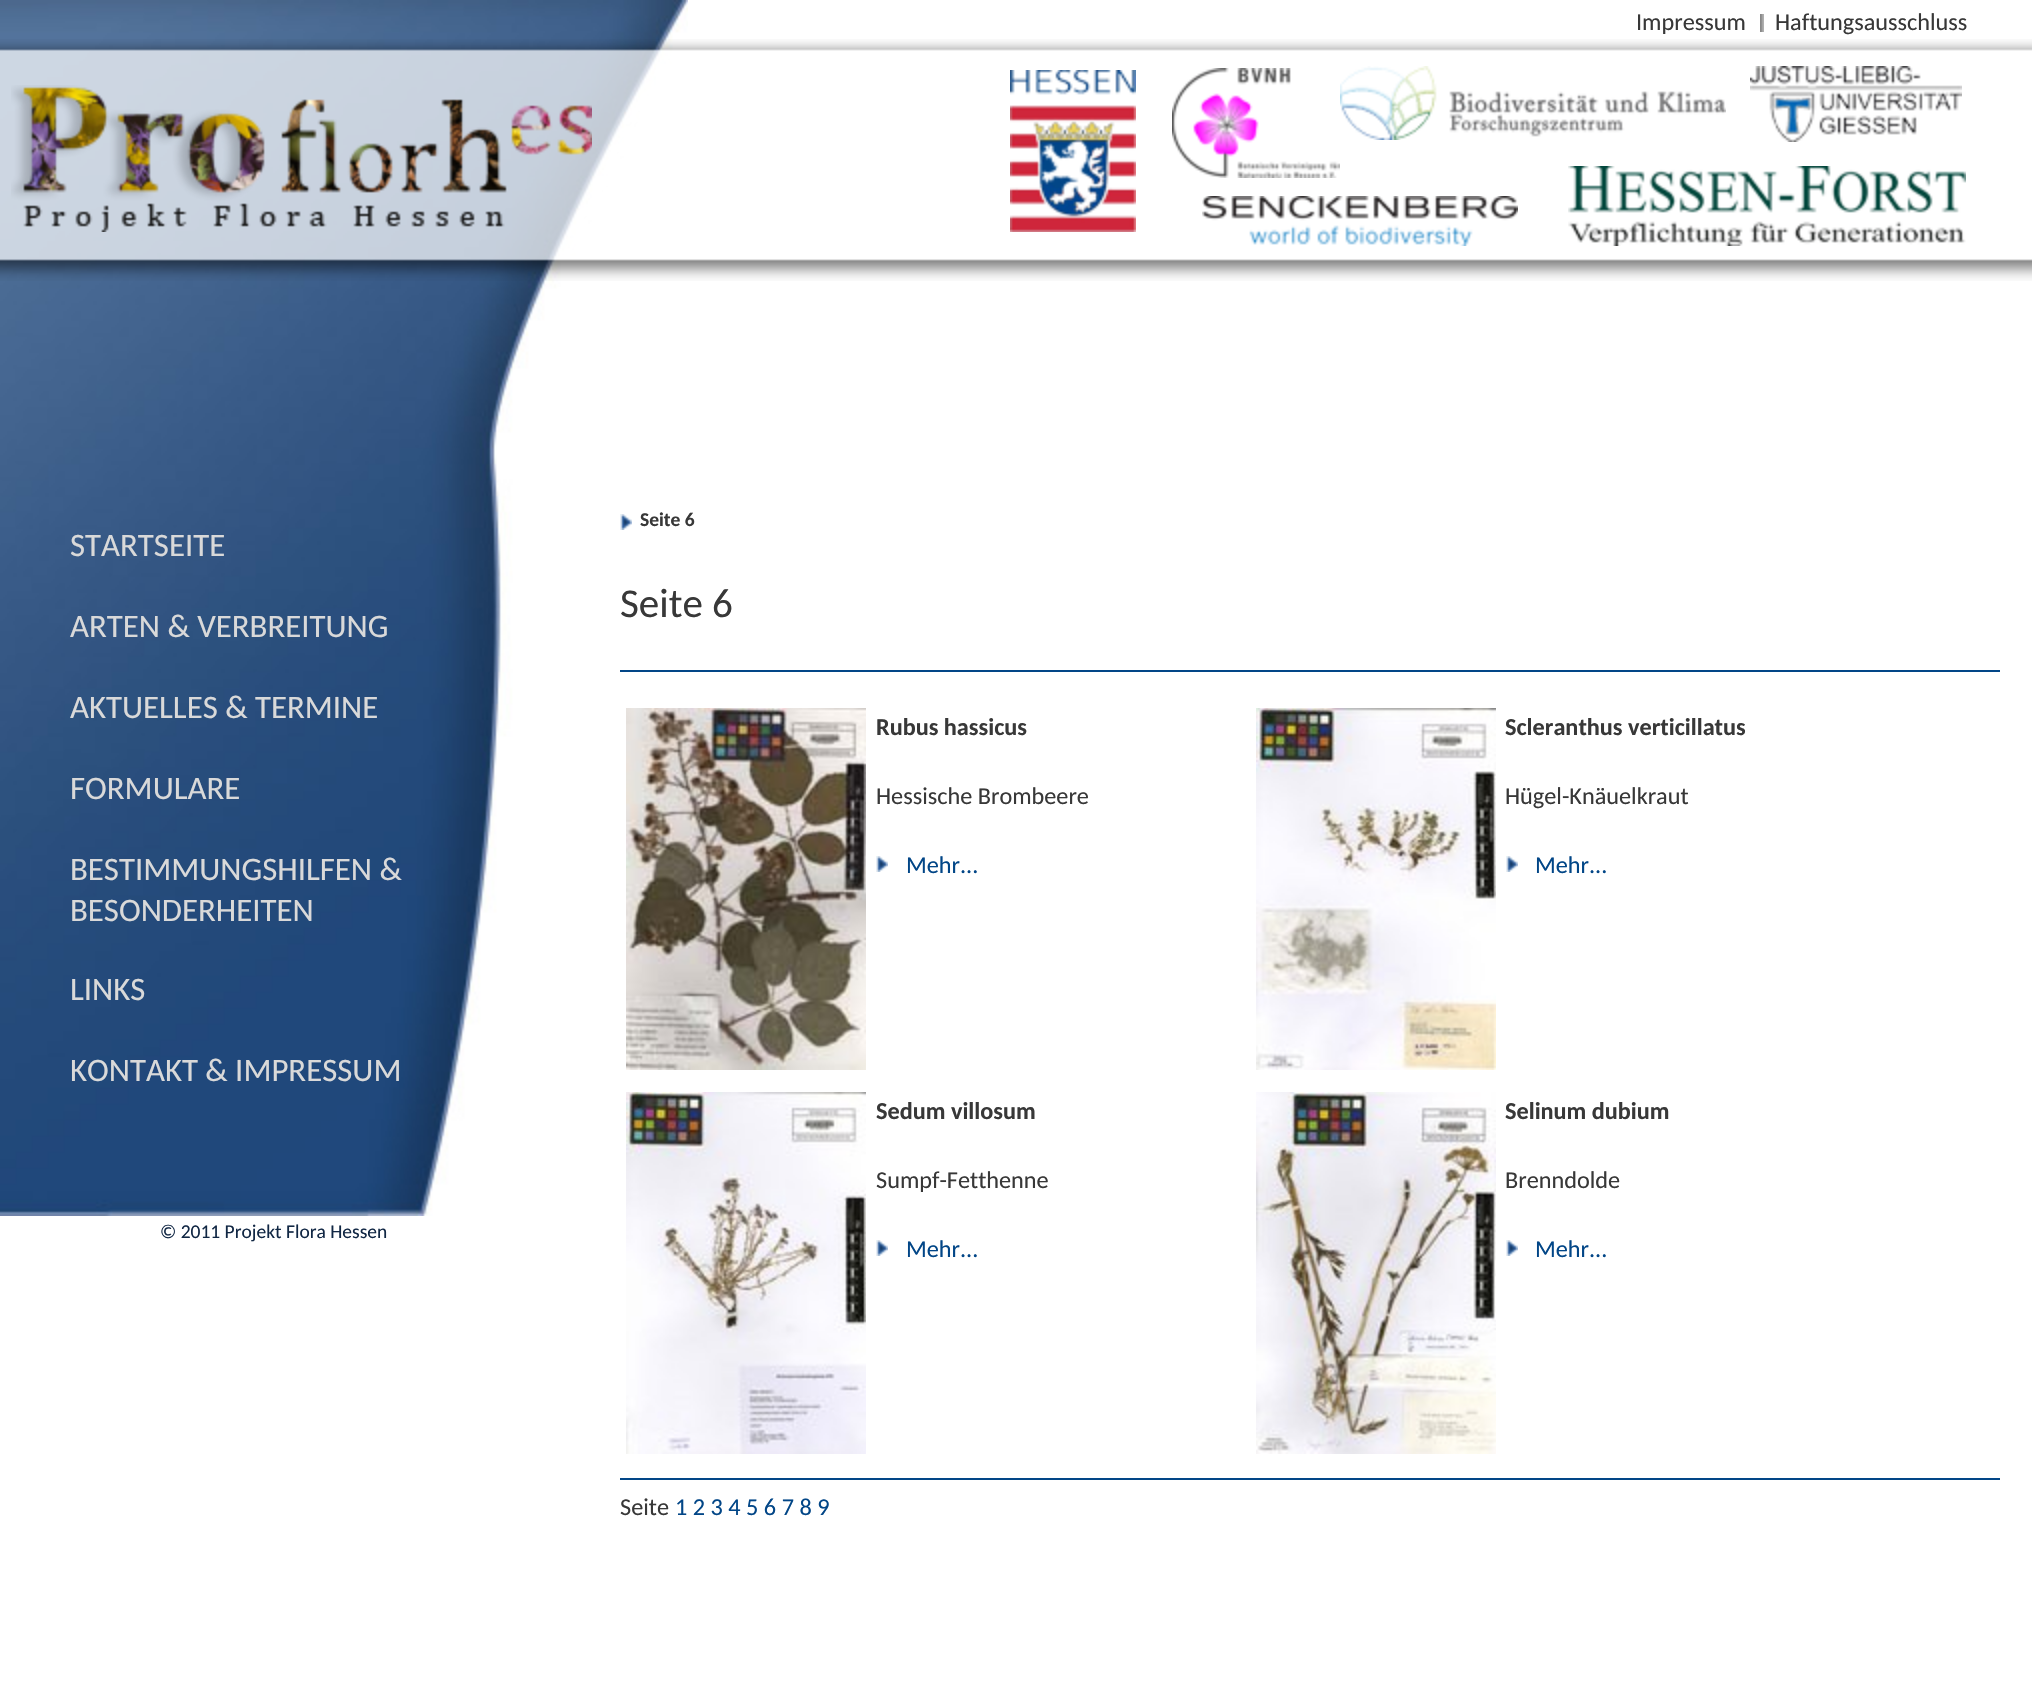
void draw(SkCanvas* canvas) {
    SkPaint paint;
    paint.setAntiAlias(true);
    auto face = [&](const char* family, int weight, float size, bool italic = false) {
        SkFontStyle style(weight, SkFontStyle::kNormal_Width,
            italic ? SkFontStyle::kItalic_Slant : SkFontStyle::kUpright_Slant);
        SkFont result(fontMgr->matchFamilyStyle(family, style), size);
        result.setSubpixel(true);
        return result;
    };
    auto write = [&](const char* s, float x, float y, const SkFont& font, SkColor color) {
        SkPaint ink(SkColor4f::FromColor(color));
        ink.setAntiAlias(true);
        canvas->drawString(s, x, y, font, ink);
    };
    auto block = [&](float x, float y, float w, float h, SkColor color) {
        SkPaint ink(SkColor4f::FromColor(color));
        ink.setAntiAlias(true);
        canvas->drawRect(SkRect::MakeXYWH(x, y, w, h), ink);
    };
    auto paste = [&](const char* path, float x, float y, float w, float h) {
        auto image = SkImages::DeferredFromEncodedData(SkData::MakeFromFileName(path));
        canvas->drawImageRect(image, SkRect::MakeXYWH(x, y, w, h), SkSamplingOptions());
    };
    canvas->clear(SK_ColorWHITE);
    paste("pic1.png", 0, 0, 688, 1216);
    auto kFont1 = face("Carlito", 400, 24.25f);
    write("Impressum", 1636, 30, kFont1, SkColorSetRGB(56, 56, 56));
    paste("pic2.png", 1760, 14, 4, 18);
    write("Haftungsausschluss", 1775, 30, kFont1, SkColorSetRGB(56, 56, 56));
    auto kFont2 = face("Carlito", 400, 32.8f);
    write("STARTSEITE", 70, 556, kFont2, SkColorSetRGB(217, 217, 217));
    write("ARTEN & VERBREITUNG", 70, 637, kFont2, SkColorSetRGB(217, 217, 217));
    write("AKTUELLES & TERMINE", 70, 718, kFont2, SkColorSetRGB(217, 217, 217));
    write("FORMULARE", 70, 799, kFont2, SkColorSetRGB(217, 217, 217));
    write("BESTIMMUNGSHILFEN &", 70, 880, kFont2, SkColorSetRGB(217, 217, 217));
    write("BESONDERHEITEN", 70, 921, kFont2, SkColorSetRGB(217, 217, 217));
    write("LINKS", 70, 1000, kFont2, SkColorSetRGB(217, 217, 217));
    write("KONTAKT & IMPRESSUM", 70, 1081, kFont2, SkColorSetRGB(217, 217, 217));
    paste("pic3.png", 620, 514, 12, 16);
    auto kFont3 = face("Carlito", 700, 19.5f);
    write("Seite 6", 640, 526, kFont3, SkColorSetRGB(56, 56, 56));
    auto kFont4 = face("Carlito", 400, 41);
    write("Seite 6", 620, 617, kFont4, SkColorSetRGB(56, 56, 56));
    block(620, 670, 1380, 2, SkColorSetRGB(2, 70, 135));
    paste("pic4.png", 626, 708, 240, 362);
    auto kFont5 = face("Carlito", 700, 24.25f);
    write("Rubus hassicus", 876, 735, kFont5, SkColorSetRGB(56, 56, 56));
    write("Hessische Brombeere", 876, 804, kFont1, SkColorSetRGB(56, 56, 56));
    paste("pic3.png", 876, 856, 12, 16);
    write("Mehr...", 906, 873, kFont1, SkColorSetRGB(2, 70, 135));
    paste("pic5.png", 1256, 708, 240, 362);
    write("Scleranthus verticillatus", 1505, 735, kFont5, SkColorSetRGB(56, 56, 56));
    write("Hügel-Knäuelkraut", 1505, 804, kFont1, SkColorSetRGB(56, 56, 56));
    paste("pic3.png", 1506, 856, 12, 16);
    write("Mehr...", 1535, 873, kFont1, SkColorSetRGB(2, 70, 135));
    paste("pic6.png", 626, 1092, 240, 362);
    write("Sedum villosum", 876, 1119, kFont5, SkColorSetRGB(56, 56, 56));
    write("Sumpf-Fetthenne", 876, 1188, kFont1, SkColorSetRGB(56, 56, 56));
    paste("pic3.png", 876, 1240, 12, 16);
    write("Mehr...", 906, 1257, kFont1, SkColorSetRGB(2, 70, 135));
    paste("pic7.png", 1256, 1092, 240, 362);
    write("Selinum dubium", 1505, 1119, kFont5, SkColorSetRGB(56, 56, 56));
    write("Brenndolde", 1505, 1188, kFont1, SkColorSetRGB(56, 56, 56));
    paste("pic3.png", 1506, 1240, 12, 16);
    write("Mehr...", 1535, 1257, kFont1, SkColorSetRGB(2, 70, 135));
    block(620, 1478, 1380, 2, SkColorSetRGB(2, 70, 135));
    write("Seite", 620, 1515, kFont1, SkColorSetRGB(56, 56, 56));
    write("1 2 3 4 5 6 7 8 9", 675, 1515, kFont1, SkColorSetRGB(2, 70, 135));
    auto kFont6 = face("Carlito", 400, 19.5f);
    write("© 2011 Projekt Flora Hessen", 160, 1238, kFont6, SkColorSetRGB(17, 39, 68));
    paste("pic8.png", 0, 39, 2032, 242);
    paste("pic9.png", 11, 85, 581, 147);
    paste("pic10.png", 1010, 70, 126, 162);
    paste("pic11.png", 1172, 68, 168, 110);
    paste("pic12.png", 1340, 66, 386, 74);
    paste("pic13.png", 1750, 66, 212, 76);
    paste("pic14.png", 1202, 196, 316, 50);
    paste("pic15.png", 1568, 166, 398, 80);
}
